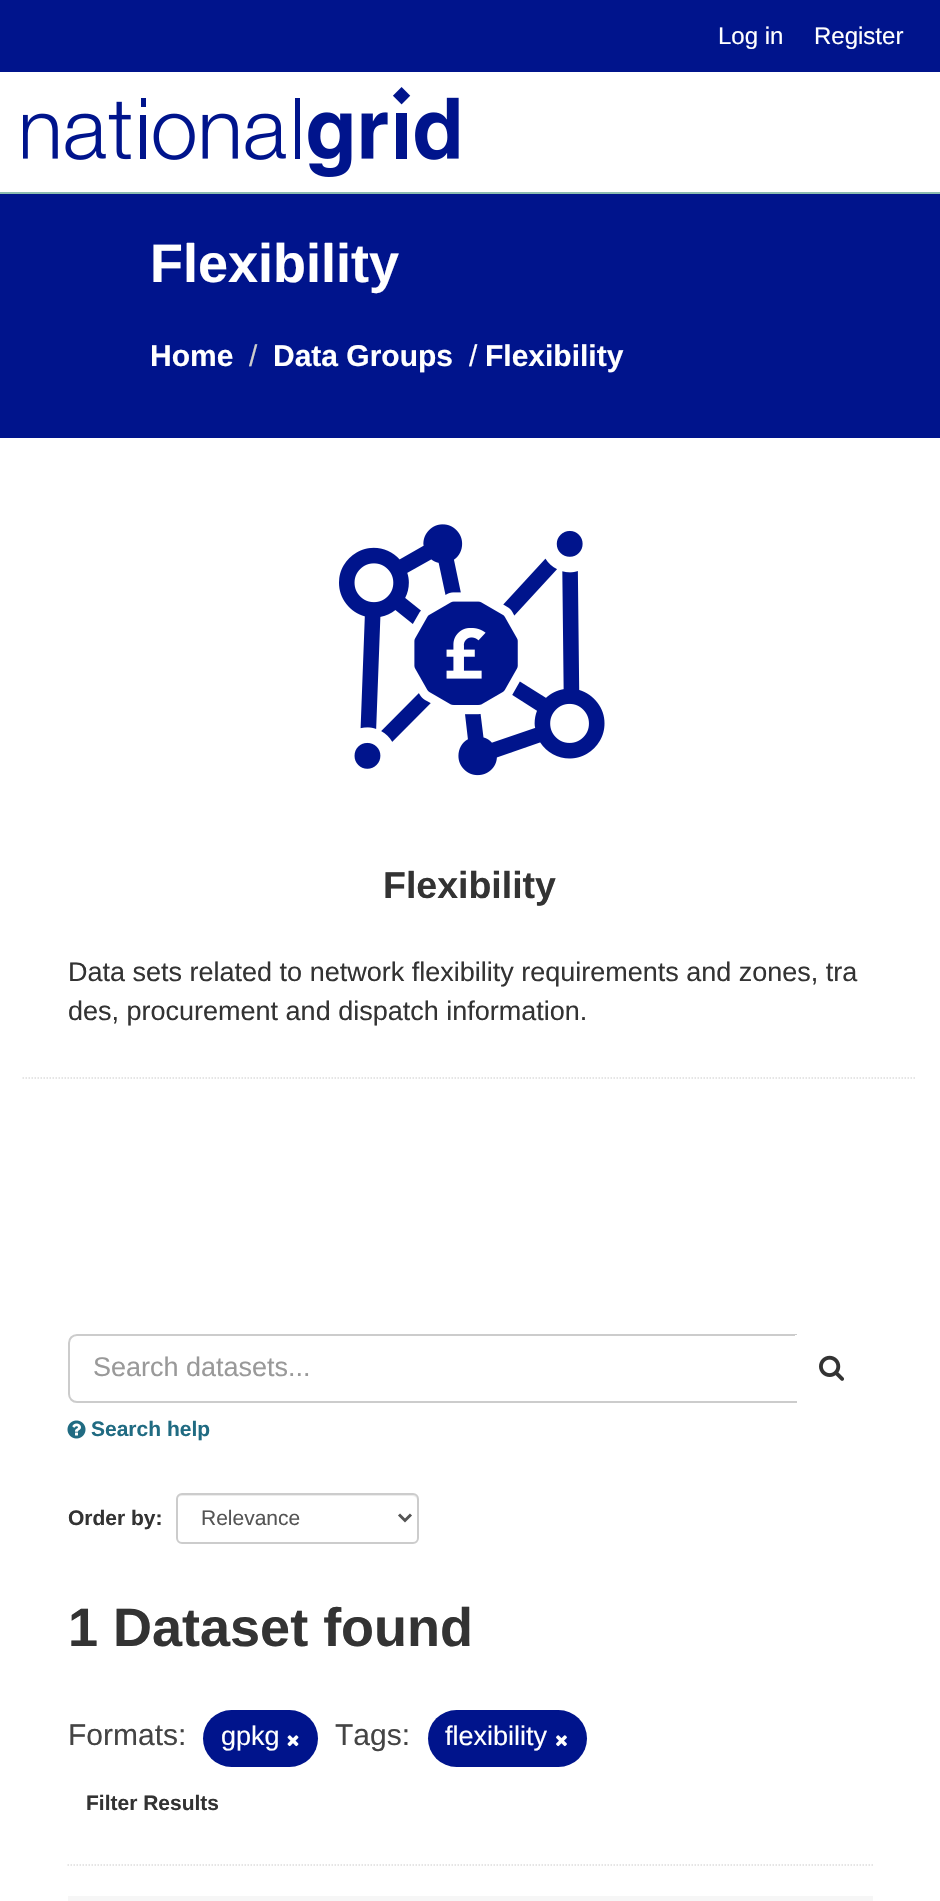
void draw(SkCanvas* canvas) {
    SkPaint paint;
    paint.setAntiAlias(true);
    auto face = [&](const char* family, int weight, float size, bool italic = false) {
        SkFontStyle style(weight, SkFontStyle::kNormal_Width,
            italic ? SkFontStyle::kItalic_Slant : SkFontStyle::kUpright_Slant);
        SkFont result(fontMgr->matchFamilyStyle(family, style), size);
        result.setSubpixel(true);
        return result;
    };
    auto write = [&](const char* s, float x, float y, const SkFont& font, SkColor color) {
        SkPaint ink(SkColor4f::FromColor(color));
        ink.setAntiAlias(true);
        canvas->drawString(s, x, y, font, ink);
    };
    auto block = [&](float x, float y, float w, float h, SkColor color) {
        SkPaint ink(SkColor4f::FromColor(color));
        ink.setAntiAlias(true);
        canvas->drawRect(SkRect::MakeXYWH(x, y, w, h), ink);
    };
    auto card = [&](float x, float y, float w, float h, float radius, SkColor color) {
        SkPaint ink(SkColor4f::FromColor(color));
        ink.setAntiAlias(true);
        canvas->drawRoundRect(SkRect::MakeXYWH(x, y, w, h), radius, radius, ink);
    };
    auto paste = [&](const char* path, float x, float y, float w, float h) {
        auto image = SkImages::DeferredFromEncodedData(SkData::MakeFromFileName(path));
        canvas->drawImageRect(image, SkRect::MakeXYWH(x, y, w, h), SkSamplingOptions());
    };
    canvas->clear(SK_ColorWHITE);
    block(0, 0, 940, 72, SkColorSetRGB(0, 20, 140));
    auto kFont1 = face("Liberation Sans", 400, 24);
    write("Log in", 718, 44, kFont1, SK_ColorWHITE);
    write("Register", 814, 44, kFont1, SK_ColorWHITE);
    block(0, 192, 940, 2, SkColorSetRGB(141, 188, 176));
    paste("pic1.png", 23, 87, 436, 90);
    block(0, 194, 940, 244, SkColorSetRGB(0, 20, 140));
    auto kFont2 = face("Liberation Sans", 700, 54);
    write("Flexibility", 150, 282, kFont2, SK_ColorWHITE);
    auto kFont3 = face("Liberation Sans", 700, 30);
    write("Home", 150, 366, kFont3, SK_ColorWHITE);
    auto kFont4 = face("Liberation Sans", 400, 30);
    write("/", 249, 366, kFont4, SkColorSetRGB(204, 204, 204));
    write("Data Groups", 273, 366, kFont3, SK_ColorWHITE);
    write("/", 469, 366, kFont4, SK_ColorWHITE);
    write("Flexibility", 485, 366, kFont3, SK_ColorWHITE);
    paste("pic2.png", 339, 524, 266, 252);
    auto kFont5 = face("Liberation Sans", 700, 37.5f);
    write("Flexibility", 383, 898, kFont5, SkColorSetRGB(51, 51, 51));
    auto kFont6 = face("Liberation Sans", 400, 27);
    write("Data sets related to network flexibility requirements and zones, tra", 68, 981, kFont6, SkColorSetRGB(51, 51, 51));
    write("des, procurement and dispatch information.", 68, 1020, kFont6, SkColorSetRGB(51, 51, 51));
    paint.setStyle(SkPaint::kStroke_Style);
    paint.setStrokeWidth(1.5f);
    paint.setColor(SkColorSetRGB(221, 221, 221));
    paint.setPathEffect(SkDashPathEffect::Make({{1.5f, 1.5f}}, 0));
    canvas->drawPath(SkPathBuilder().moveTo(22.5f, 1078).lineTo(916.5f, 1078).detach(), paint);
    paint.setPathEffect(nullptr);
    paint.setPathEffect(SkDashPathEffect::Make({{1.5f, 1.5f}}, 0));
    canvas->drawPath(SkPathBuilder().moveTo(67.5f, 1865).lineTo(873, 1865).detach(), paint);
    paint.setPathEffect(nullptr);
    paint.setStrokeWidth(2);
    paint.setColor(SkColorSetRGB(204, 204, 204));
    canvas->drawPath(SkPathBuilder().moveTo(77, 1335).lineTo(796, 1335).lineTo(796, 1402).lineTo(77, 1402).cubicTo(72.5f, 1402, 69, 1398.5f, 69, 1394).lineTo(69, 1343).cubicTo(69, 1338.5f, 72.5f, 1335, 77, 1335).close().detach(), paint);
    write("Search datasets...", 93, 1376, kFont6, SkColorSetRGB(153, 153, 153));
    paint.setStyle(SkPaint::kFill_Style);
    paint.setColor(SK_ColorWHITE);
    canvas->drawPath(SkPathBuilder().moveTo(795, 1335).lineTo(864, 1335).cubicTo(869, 1335, 873, 1339, 873, 1344).lineTo(873, 1392).cubicTo(873, 1397, 869, 1401, 864, 1401).lineTo(795, 1401).close().detach(), paint);
    paste("pic3.png", 819, 1355, 25, 26);
    paste("pic4.png", 67, 1420, 19, 19);
    auto kFont7 = face("Liberation Sans", 700, 21);
    write("Search help", 91, 1436, kFont7, SkColorSetRGB(32, 107, 130));
    write("Order by:", 68, 1525, kFont7, SkColorSetRGB(51, 51, 51));
    paint.setColor(SkColorSetRGB(236, 236, 236));
    canvas->drawPath(SkPathBuilder().moveTo(182, 1496).lineTo(412, 1496).cubicTo(415, 1496, 417, 1498, 417, 1500).lineTo(417, 1499).cubicTo(417, 1496, 415, 1494, 412, 1494).lineTo(182, 1494).cubicTo(179, 1494, 177, 1496, 177, 1499).lineTo(177, 1500).cubicTo(177, 1498, 179, 1496, 182, 1496).close().detach(), paint);
    paint.setStyle(SkPaint::kStroke_Style);
    paint.setColor(SkColorSetRGB(204, 204, 204));
    canvas->drawRoundRect(SkRect::MakeXYWH(177, 1494, 241, 49), 5, 5, paint);
    paint.setStrokeWidth(3);
    paint.setColor(SkColorSetRGB(85, 85, 85));
    canvas->drawPath(SkPathBuilder().moveTo(399, 1514.5f).lineTo(405, 1520.5f).lineTo(411, 1514.5f).detach(), paint);
    auto kFont8 = face("Liberation Sans", 400, 21);
    write("Relevance", 201, 1525, kFont8, SkColorSetRGB(85, 85, 85));
    write("1 Dataset found", 68, 1646, kFont2, SkColorSetRGB(51, 51, 51));
    write("Formats:", 68, 1745, kFont4, SkColorSetRGB(68, 68, 68));
    card(203, 1710, 115, 57, 28.5f, SkColorSetRGB(0, 20, 140));
    write("gpkg", 221, 1745, kFont6, SK_ColorWHITE);
    paste("pic5.png", 287, 1735, 12, 12);
    write("Tags:", 335, 1745, kFont4, SkColorSetRGB(68, 68, 68));
    card(428, 1710, 159, 57, 28.5f, SkColorSetRGB(0, 20, 140));
    write("flexibility", 445, 1745, kFont6, SK_ColorWHITE);
    paste("pic6.png", 556, 1735, 11, 12);
    write("Filter Results", 86, 1810, kFont7, SkColorSetRGB(51, 51, 51));
    block(68, 1896, 805, 5, SkColorSetRGB(246, 246, 246));
}
